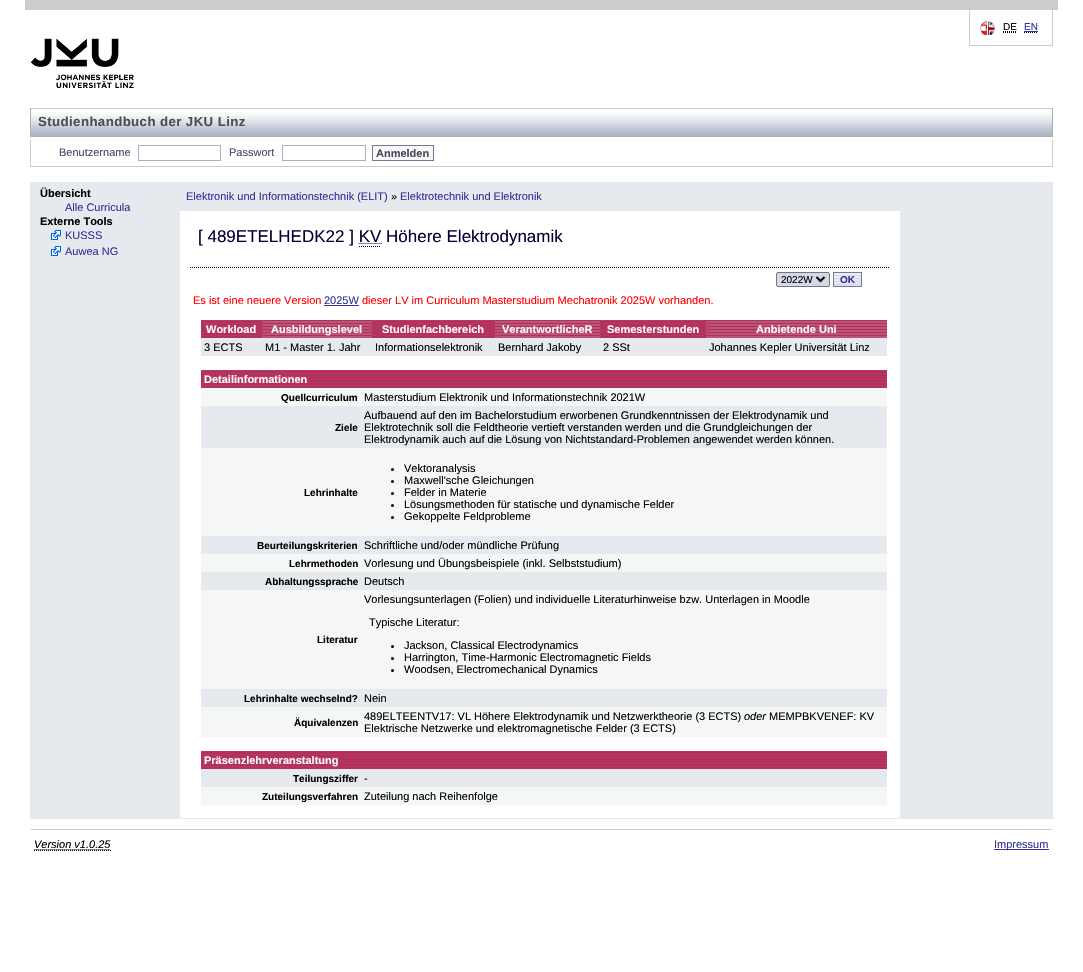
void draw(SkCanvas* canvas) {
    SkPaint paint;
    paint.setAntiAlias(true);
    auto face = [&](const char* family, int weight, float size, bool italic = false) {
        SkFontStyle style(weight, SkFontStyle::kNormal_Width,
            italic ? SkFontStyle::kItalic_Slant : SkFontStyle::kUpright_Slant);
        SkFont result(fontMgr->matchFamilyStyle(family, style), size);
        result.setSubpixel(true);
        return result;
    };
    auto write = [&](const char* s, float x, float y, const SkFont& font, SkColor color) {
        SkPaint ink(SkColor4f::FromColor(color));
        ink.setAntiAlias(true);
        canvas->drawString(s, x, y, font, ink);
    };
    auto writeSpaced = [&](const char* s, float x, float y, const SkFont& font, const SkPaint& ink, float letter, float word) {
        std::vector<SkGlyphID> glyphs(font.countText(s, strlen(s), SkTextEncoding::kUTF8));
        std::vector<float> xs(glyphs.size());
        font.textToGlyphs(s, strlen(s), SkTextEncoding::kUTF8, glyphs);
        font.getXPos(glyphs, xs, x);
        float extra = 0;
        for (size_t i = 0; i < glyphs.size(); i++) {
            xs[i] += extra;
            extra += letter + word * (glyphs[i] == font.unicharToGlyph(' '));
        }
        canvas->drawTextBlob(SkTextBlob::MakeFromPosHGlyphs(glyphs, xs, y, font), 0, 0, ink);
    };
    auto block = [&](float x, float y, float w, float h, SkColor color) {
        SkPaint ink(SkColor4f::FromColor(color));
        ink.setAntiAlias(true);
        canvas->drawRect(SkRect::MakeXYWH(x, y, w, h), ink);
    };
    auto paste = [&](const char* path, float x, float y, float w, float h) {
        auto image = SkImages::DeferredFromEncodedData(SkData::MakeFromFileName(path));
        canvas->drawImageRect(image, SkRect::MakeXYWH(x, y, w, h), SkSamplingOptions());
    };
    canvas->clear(SK_ColorWHITE);
    block(25, 0, 1033, 10, SkColorSetRGB(204, 204, 204));
    block(1052, 10, 1, 36, SkColorSetRGB(204, 204, 204));
    block(969, 45, 84, 1, SkColorSetRGB(204, 204, 204));
    block(969, 10, 1, 36, SkColorSetRGB(204, 204, 204));
    paste("pic1.png", 980, 21, 15, 14);
    auto kFont1 = face("Liberation Sans", 400, 10);
    write("DE", 1003, 30, kFont1, SK_ColorBLACK);
    paint.setStyle(SkPaint::kStroke_Style);
    paint.setStrokeWidth(1);
    paint.setColor(SK_ColorBLACK);
    paint.setPathEffect(SkDashPathEffect::Make({{1, 1}}, 0));
    canvas->drawPath(SkPathBuilder().moveTo(1003, 32.5f).lineTo(1016, 32.5f).moveTo(1003, 31.5f).lineTo(1016.5f, 31.5f).detach(), paint);
    paint.setPathEffect(nullptr);
    write("EN", 1024, 30, kFont1, SkColorSetRGB(51, 50, 152));
    paint.setPathEffect(SkDashPathEffect::Make({{1, 1}}, 0));
    canvas->drawPath(SkPathBuilder().moveTo(1024, 32.5f).lineTo(1038, 32.5f).detach(), paint);
    paint.setPathEffect(nullptr);
    block(1024, 31, 14, 1, SkColorSetRGB(51, 50, 152));
    paste("pic2.png", 30, 38, 104, 51);
    paste("pic3.png", 31, 108, 1021, 28);
    block(1052, 108, 1, 29, SkColorSetRGB(174, 174, 174));
    block(30, 136, 1023, 1, SkColorSetRGB(174, 174, 174));
    block(30, 108, 1, 29, SkColorSetRGB(174, 174, 174));
    auto kFont2 = face("Liberation Sans", 700, 13.25f);
    paint.setStyle(SkPaint::kFill_Style);
    paint.setColor(SkColorSetRGB(78, 78, 78));
    writeSpaced("Studienhandbuch der JKU Linz", 38, 126, kFont2, paint, 0.4f, 0);
    block(1052, 140, 1, 27, SkColorSetRGB(204, 204, 204));
    block(30, 166, 1023, 1, SkColorSetRGB(204, 204, 204));
    block(30, 140, 1, 27, SkColorSetRGB(204, 204, 204));
    auto kFont3 = face("Liberation Sans", 400, 11);
    write("Benutzername", 59, 156, kFont3, SkColorSetRGB(71, 71, 102));
    paint.setStyle(SkPaint::kStroke_Style);
    paint.setColor(SkColorSetRGB(176, 174, 195));
    canvas->drawRect(SkRect::MakeXYWH(138.5f, 145.5f, 82, 15), paint);
    write("Passwort", 229, 156, kFont3, SkColorSetRGB(71, 71, 102));
    canvas->drawRect(SkRect::MakeXYWH(282.5f, 145.5f, 83, 15), paint);
    paint.setStyle(SkPaint::kFill_Style);
    paint.setColor(SkColorSetRGB(247, 247, 247));
    canvas->drawRect(SkRect::MakeXYWH(372.5f, 145.5f, 61, 15), paint);
    paint.setStyle(SkPaint::kStroke_Style);
    paint.setColor(SkColorSetRGB(116, 120, 149));
    canvas->drawRect(SkRect::MakeXYWH(372.5f, 145.5f, 61, 15), paint);
    auto kFont4 = face("Liberation Sans", 700, 11);
    write("Anmelden", 376, 157, kFont4, SkColorSetRGB(71, 71, 102));
    block(30, 182, 150, 636, SkColorSetRGB(230, 233, 238));
    write("Übersicht", 40, 197, kFont4, SK_ColorBLACK);
    write("Alle Curricula", 65, 211, kFont3, SkColorSetRGB(51, 50, 152));
    write("Externe Tools", 40, 225, kFont4, SK_ColorBLACK);
    paste("pic4.png", 51, 230, 10, 10);
    write("KUSSS", 65, 239, kFont3, SkColorSetRGB(51, 50, 152));
    paste("pic4.png", 51, 246, 10, 10);
    write("Auwea NG", 65, 255, kFont3, SkColorSetRGB(51, 50, 152));
    block(180, 182, 873, 29, SkColorSetRGB(230, 233, 238));
    write("Elektronik und Informationstechnik (ELIT)", 186, 200, kFont3, SkColorSetRGB(51, 50, 152));
    write("»", 391, 200, kFont3, SK_ColorBLACK);
    write("Elektrotechnik und Elektronik", 400, 200, kFont3, SkColorSetRGB(51, 50, 152));
    block(900, 210, 1, 608, SkColorSetRGB(230, 233, 238));
    paint.setColor(SK_ColorBLACK);
    paint.setPathEffect(SkDashPathEffect::Make({{1, 1}}, 0));
    canvas->drawPath(SkPathBuilder().moveTo(190, 267.5f).lineTo(890, 267.5f).detach(), paint);
    paint.setPathEffect(nullptr);
    auto kFont5 = face("Liberation Sans", 400, 17);
    write("[ 489ETELHEDK22 ] KV Höhere Elektrodynamik", 198, 242, kFont5, SkColorSetRGB(0, 0, 51));
    paint.setColor(SkColorSetRGB(0, 0, 51));
    paint.setPathEffect(SkDashPathEffect::Make({{1, 1}}, 0));
    canvas->drawPath(SkPathBuilder().moveTo(358.5f, 243.5f).lineTo(381.5f, 243.5f).detach(), paint);
    paint.setPathEffect(nullptr);
    paint.setColor(SK_ColorBLACK);
    paint.setPathEffect(SkDashPathEffect::Make({{1, 1}}, 0));
    canvas->drawPath(SkPathBuilder().moveTo(359, 246.5f).lineTo(381, 246.5f).detach(), paint);
    paint.setPathEffect(nullptr);
    paint.setStyle(SkPaint::kFill_Style);
    paint.setColor(SkColorSetRGB(214, 215, 233));
    canvas->drawRoundRect(SkRect::MakeXYWH(776.5f, 272.5f, 53, 14), 1.5f, 1.5f, paint);
    paint.setStyle(SkPaint::kStroke_Style);
    paint.setColor(SkColorSetRGB(118, 118, 118));
    canvas->drawRoundRect(SkRect::MakeXYWH(776.5f, 272.5f, 53, 14), 1.5f, 1.5f, paint);
    paint.setStrokeWidth(2);
    paint.setColor(SK_ColorBLACK);
    canvas->drawPath(SkPathBuilder().moveTo(816.5f, 277).lineTo(820.5f, 281).lineTo(824.5f, 277).detach(), paint);
    write("2022W", 781, 283, kFont1, SK_ColorBLACK);
    paste("pic5.png", 834, 273, 27, 13);
    paint.setStrokeWidth(1);
    paint.setColor(SkColorSetRGB(116, 120, 149));
    canvas->drawRect(SkRect::MakeXYWH(833.5f, 272.5f, 28, 14), paint);
    auto kFont6 = face("Liberation Sans", 700, 10);
    write("OK", 840, 283, kFont6, SkColorSetRGB(51, 50, 152));
    write("Es ist eine neuere Version", 193, 304, kFont3, SkColorSetRGB(255, 0, 0));
    write("2025W", 324, 304, kFont3, SkColorSetRGB(51, 50, 152));
    block(324, 305, 35, 1, SkColorSetRGB(51, 50, 152));
    write("dieser LV im Curriculum Masterstudium Mechatronik 2025W vorhanden.", 362, 304, kFont3, SkColorSetRGB(255, 0, 0));
    paste("pic6.png", 201, 320, 61, 18);
    write("Workload", 206, 333, kFont4, SkColorSetRGB(247, 247, 247));
    paste("pic7.png", 262, 320, 110, 18);
    write("Ausbildungslevel", 271, 333, kFont4, SkColorSetRGB(247, 247, 247));
    paste("pic8.png", 372, 320, 123, 18);
    write("Studienfachbereich", 382, 333, kFont4, SkColorSetRGB(247, 247, 247));
    paste("pic9.png", 495, 320, 105, 18);
    write("VerantwortlicheR", 502, 333, kFont4, SkColorSetRGB(247, 247, 247));
    paste("pic10.png", 600, 320, 106, 18);
    write("Semesterstunden", 607, 333, kFont4, SkColorSetRGB(247, 247, 247));
    paste("pic11.png", 706, 320, 181, 18);
    write("Anbietende Uni", 756, 333, kFont4, SkColorSetRGB(247, 247, 247));
    block(201, 338, 686, 18, SkColorSetRGB(230, 233, 237));
    write("3 ECTS", 204, 351, kFont3, SK_ColorBLACK);
    write("M1 - Master 1. Jahr", 265, 351, kFont3, SK_ColorBLACK);
    write("Informationselektronik", 375, 351, kFont3, SK_ColorBLACK);
    write("Bernhard Jakoby", 498, 351, kFont3, SK_ColorBLACK);
    write("2 SSt", 603, 351, kFont3, SK_ColorBLACK);
    write("Johannes Kepler Universität Linz", 709, 351, kFont3, SK_ColorBLACK);
    paste("pic12.png", 201, 370, 686, 18);
    write("Detailinformationen", 204, 383, kFont4, SkColorSetRGB(247, 247, 247));
    block(201, 388, 686, 18, SkColorSetRGB(245, 247, 247));
    write("Quellcurriculum", 281, 401, kFont6, SK_ColorBLACK);
    write("Masterstudium Elektronik und Informationstechnik 2021W", 364, 401, kFont3, SK_ColorBLACK);
    block(201, 406, 686, 42, SkColorSetRGB(230, 233, 237));
    write("Ziele", 335, 431, kFont6, SK_ColorBLACK);
    write("Aufbauend auf den im Bachelorstudium erworbenen Grundkenntnissen der Elektrodynamik und", 364, 419, kFont3, SK_ColorBLACK);
    write("Elektrotechnik soll die Feldtheorie vertieft verstanden werden und die Grundgleichungen der", 364, 431, kFont3, SK_ColorBLACK);
    write("Elektrodynamik auch auf die Lösung von Nichtstandard-Problemen angewendet werden können.", 364, 443, kFont3, SK_ColorBLACK);
    block(201, 448, 686, 88, SkColorSetRGB(245, 247, 247));
    write("Lehrinhalte", 304, 496, kFont6, SK_ColorBLACK);
    paint.setStyle(SkPaint::kFill_Style);
    paint.setColor(SK_ColorBLACK);
    canvas->drawCircle(392.5f, 469.5f, 1.5f, paint);
    write("Vektoranalysis", 404, 472, kFont3, SK_ColorBLACK);
    canvas->drawCircle(392.5f, 481.5f, 1.5f, paint);
    write("Maxwell'sche Gleichungen", 404, 484, kFont3, SK_ColorBLACK);
    canvas->drawCircle(392.5f, 493.5f, 1.5f, paint);
    write("Felder in Materie", 404, 496, kFont3, SK_ColorBLACK);
    canvas->drawCircle(392.5f, 505.5f, 1.5f, paint);
    write("Lösungsmethoden für statische und dynamische Felder", 404, 508, kFont3, SK_ColorBLACK);
    canvas->drawCircle(392.5f, 517.5f, 1.5f, paint);
    write("Gekoppelte Feldprobleme", 404, 520, kFont3, SK_ColorBLACK);
    block(201, 536, 686, 18, SkColorSetRGB(230, 233, 237));
    write("Beurteilungskriterien", 257, 549, kFont6, SK_ColorBLACK);
    write("Schriftliche und/oder mündliche Prüfung", 364, 549, kFont3, SK_ColorBLACK);
    block(201, 554, 686, 18, SkColorSetRGB(245, 247, 247));
    write("Lehrmethoden", 289, 567, kFont6, SK_ColorBLACK);
    write("Vorlesung und Übungsbeispiele (inkl. Selbststudium)", 364, 567, kFont3, SK_ColorBLACK);
    block(201, 572, 686, 18, SkColorSetRGB(230, 233, 237));
    write("Abhaltungssprache", 265, 585, kFont6, SK_ColorBLACK);
    write("Deutsch", 364, 585, kFont3, SK_ColorBLACK);
    block(201, 590, 686, 99, SkColorSetRGB(245, 247, 247));
    write("Literatur", 317, 643, kFont6, SK_ColorBLACK);
    write("Vorlesungsunterlagen (Folien) und individuelle Literaturhinweise bzw. Unterlagen in Moodle", 364, 603, kFont3, SK_ColorBLACK);
    write("Typische Literatur:", 369, 626, kFont3, SK_ColorBLACK);
    canvas->drawCircle(392.5f, 646.5f, 1.5f, paint);
    write("Jackson, Classical Electrodynamics", 404, 649, kFont3, SK_ColorBLACK);
    canvas->drawCircle(392.5f, 658.5f, 1.5f, paint);
    write("Harrington, Time-Harmonic Electromagnetic Fields", 404, 661, kFont3, SK_ColorBLACK);
    canvas->drawCircle(392.5f, 670.5f, 1.5f, paint);
    write("Woodsen, Electromechanical Dynamics", 404, 673, kFont3, SK_ColorBLACK);
    block(201, 689, 686, 18, SkColorSetRGB(230, 233, 237));
    write("Lehrinhalte wechselnd?", 244, 702, kFont6, SK_ColorBLACK);
    write("Nein", 364, 702, kFont3, SK_ColorBLACK);
    block(201, 707, 686, 30, SkColorSetRGB(245, 247, 247));
    write("Äquivalenzen", 294, 726, kFont6, SK_ColorBLACK);
    write("489ELTEENTV17: VL Höhere Elektrodynamik und Netzwerktheorie (3 ECTS)", 364, 720, kFont3, SK_ColorBLACK);
    auto kFont7 = face("Liberation Sans", 400, 11, true);
    write("oder", 744, 720, kFont7, SK_ColorBLACK);
    write("MEMPBKVENEF: KV", 769, 720, kFont3, SK_ColorBLACK);
    write("Elektrische Netzwerke und elektromagnetische Felder (3 ECTS)", 364, 732, kFont3, SK_ColorBLACK);
    paste("pic12.png", 201, 751, 686, 18);
    write("Präsenzlehrveranstaltung", 204, 764, kFont4, SkColorSetRGB(247, 247, 247));
    block(201, 769, 686, 18, SkColorSetRGB(230, 233, 237));
    write("Teilungsziffer", 293, 782, kFont6, SK_ColorBLACK);
    write("-", 364, 782, kFont3, SK_ColorBLACK);
    block(201, 787, 686, 18, SkColorSetRGB(245, 247, 247));
    write("Zuteilungsverfahren", 262, 800, kFont6, SK_ColorBLACK);
    write("Zuteilung nach Reihenfolge", 364, 800, kFont3, SK_ColorBLACK);
    block(901, 211, 152, 607, SkColorSetRGB(230, 233, 238));
    block(30, 818, 1024, 1, SkColorSetRGB(230, 233, 238));
    block(31, 829, 1021, 1, SkColorSetRGB(204, 204, 204));
    write("Version v1.0.25", 34, 848, kFont7, SK_ColorBLACK);
    paint.setStyle(SkPaint::kStroke_Style);
    paint.setPathEffect(SkDashPathEffect::Make({{1, 1}}, 0));
    canvas->drawPath(SkPathBuilder().moveTo(34, 850.5f).lineTo(111, 850.5f).detach(), paint);
    paint.setPathEffect(nullptr);
    paint.setPathEffect(SkDashPathEffect::Make({{1, 1}}, 0));
    canvas->drawPath(SkPathBuilder().moveTo(34.5f, 849.5f).lineTo(110.5f, 849.5f).detach(), paint);
    paint.setPathEffect(nullptr);
    block(994, 849, 55, 1, SkColorSetRGB(51, 50, 152));
    write("Impressum", 994, 848, kFont3, SkColorSetRGB(51, 50, 152));
}
